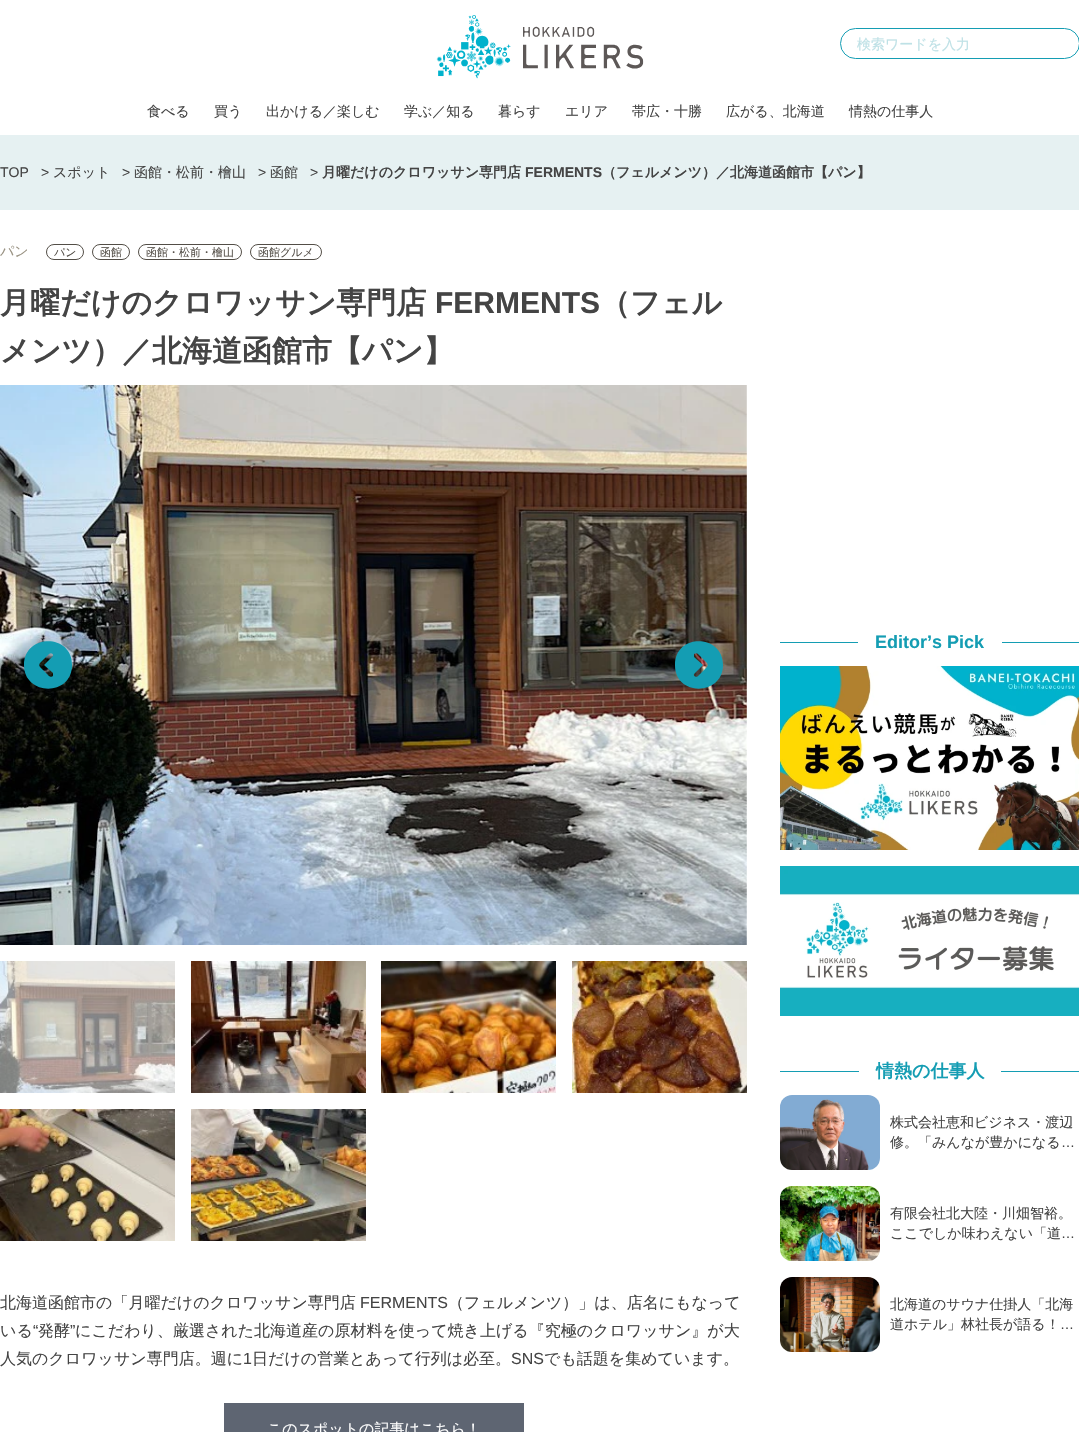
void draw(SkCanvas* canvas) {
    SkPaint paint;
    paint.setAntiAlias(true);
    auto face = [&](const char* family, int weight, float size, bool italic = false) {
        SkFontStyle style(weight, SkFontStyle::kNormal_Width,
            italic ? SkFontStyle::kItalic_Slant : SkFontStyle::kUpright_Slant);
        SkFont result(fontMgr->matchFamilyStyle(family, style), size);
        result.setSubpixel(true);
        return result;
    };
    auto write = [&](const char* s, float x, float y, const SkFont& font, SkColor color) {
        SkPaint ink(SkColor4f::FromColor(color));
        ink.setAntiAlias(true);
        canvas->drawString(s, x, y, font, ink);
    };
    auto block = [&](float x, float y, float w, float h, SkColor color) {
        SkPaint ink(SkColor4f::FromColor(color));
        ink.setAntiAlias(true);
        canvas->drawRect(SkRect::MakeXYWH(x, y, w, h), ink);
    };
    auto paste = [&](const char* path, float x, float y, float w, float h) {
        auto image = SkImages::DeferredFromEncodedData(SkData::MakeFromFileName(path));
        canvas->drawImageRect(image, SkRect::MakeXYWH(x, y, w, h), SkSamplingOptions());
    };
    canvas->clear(SK_ColorWHITE);
    paste("pic1.png", 436, 15, 208, 64);
    paint.setStyle(SkPaint::kStroke_Style);
    paint.setStrokeWidth(1);
    paint.setColor(SkColorSetRGB(20, 157, 179));
    canvas->drawRoundRect(SkRect::MakeXYWH(840.5f, 28.5f, 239, 30), 15, 15, paint);
    auto kFont1 = face("WenQuanYi Zen Hei", 500, 14);
    write("検索ワードを入力", 857, 49, kFont1, SkColorSetRGB(190, 225, 230));
    write("食べる", 147, 116, kFont1, SkColorSetRGB(68, 68, 68));
    write("買う", 214, 116, kFont1, SkColorSetRGB(68, 68, 68));
    write("出かける／楽しむ", 266, 116, kFont1, SkColorSetRGB(68, 68, 68));
    write("学ぶ／知る", 404, 116, kFont1, SkColorSetRGB(68, 68, 68));
    write("暮らす", 498, 116, kFont1, SkColorSetRGB(68, 68, 68));
    write("エリア", 565, 116, kFont1, SkColorSetRGB(68, 68, 68));
    write("帯広・十勝", 632, 116, kFont1, SkColorSetRGB(68, 68, 68));
    write("広がる、北海道", 726, 116, kFont1, SkColorSetRGB(68, 68, 68));
    write("情熱の仕事人", 849, 116, kFont1, SkColorSetRGB(68, 68, 68));
    block(0, 135, 1079, 75, SkColorSetRGB(230, 241, 242));
    auto kFont2 = face("Liberation Sans", 400, 14);
    write("TOP", 0, 177, kFont2, SkColorSetRGB(68, 68, 68));
    write(">", 41, 177, kFont2, SkColorSetRGB(68, 68, 68));
    write("スポット", 53, 177, kFont1, SkColorSetRGB(68, 68, 68));
    write(">", 122, 177, kFont2, SkColorSetRGB(68, 68, 68));
    write("函館・松前・檜山", 134, 177, kFont1, SkColorSetRGB(68, 68, 68));
    write(">", 258, 177, kFont2, SkColorSetRGB(68, 68, 68));
    write("函館", 270, 177, kFont1, SkColorSetRGB(68, 68, 68));
    write(">", 310, 177, kFont2, SkColorSetRGB(68, 68, 68));
    auto kFont3 = face("WenQuanYi Zen Hei", 700, 14);
    write("月曜だけのクロワッサン専門店", 322, 177, kFont3, SkColorSetRGB(68, 68, 68));
    auto kFont4 = face("Liberation Sans", 700, 14);
    write("FERMENTS", 525, 177, kFont4, SkColorSetRGB(68, 68, 68));
    write("（フェルメンツ）／北海道函館市【パン】", 602, 177, kFont3, SkColorSetRGB(68, 68, 68));
    write("パン", 0, 256, kFont1, SkColorSetRGB(153, 146, 130));
    paint.setColor(SkColorSetRGB(83, 78, 71));
    canvas->drawRoundRect(SkRect::MakeXYWH(46.5f, 244.5f, 37, 15), 7.5f, 7.5f, paint);
    auto kFont5 = face("WenQuanYi Zen Hei", 500, 11);
    write("パン", 54, 256, kFont5, SkColorSetRGB(83, 78, 71));
    canvas->drawRoundRect(SkRect::MakeXYWH(92.5f, 244.5f, 37, 15), 7.5f, 7.5f, paint);
    write("函館", 100, 256, kFont5, SkColorSetRGB(83, 78, 71));
    canvas->drawRoundRect(SkRect::MakeXYWH(138.5f, 244.5f, 103, 15), 7.5f, 7.5f, paint);
    write("函館・松前・檜山", 146, 256, kFont5, SkColorSetRGB(83, 78, 71));
    canvas->drawRoundRect(SkRect::MakeXYWH(250.5f, 244.5f, 71, 15), 7.5f, 7.5f, paint);
    write("函館グルメ", 258, 256, kFont5, SkColorSetRGB(83, 78, 71));
    auto kFont6 = face("WenQuanYi Zen Hei", 700, 30);
    write("月曜だけのクロワッサン専門店", 0, 313, kFont6, SkColorSetRGB(68, 68, 68));
    auto kFont7 = face("Liberation Sans", 700, 30);
    write("FERMENTS", 435, 313, kFont7, SkColorSetRGB(68, 68, 68));
    write("（フェル", 600, 313, kFont6, SkColorSetRGB(68, 68, 68));
    write("メンツ）／北海道函館市【パン】", 0, 361, kFont6, SkColorSetRGB(68, 68, 68));
    paste("pic2.png", 0, 385, 747, 560);
    paint.setStyle(SkPaint::kFill_Style);
    paint.setColor(SkColorSetRGB(20, 157, 179));
    canvas->drawPath(SkPathBuilder().moveTo(72, 665).cubicTo(72, 633, 24, 634, 24, 665).cubicTo(24, 696, 72, 697, 72, 665).close().moveTo(49, 654).cubicTo(51, 652, 54, 654, 53, 656).lineTo(44, 665).lineTo(53, 673).cubicTo(53, 674, 53, 675, 53, 676).cubicTo(52, 677, 50, 677, 49, 676).lineTo(40, 667).cubicTo(39, 666, 39, 664, 40, 663).close().detach(), paint);
    canvas->drawPath(SkPathBuilder().moveTo(675, 665).cubicTo(675, 697, 723, 696, 723, 665).cubicTo(723, 634, 675, 633, 675, 665).close().moveTo(698, 676).cubicTo(696, 678, 693, 676, 694, 674).lineTo(703, 665).lineTo(694, 657).cubicTo(694, 656, 694, 655, 694, 654).cubicTo(695, 653, 697, 653, 698, 654).lineTo(707, 663).cubicTo(708, 664, 708, 666, 707, 667).close().detach(), paint);
    paste("pic3.png", 0, 961, 175, 132);
    paste("pic4.png", 191, 961, 175, 132);
    paste("pic5.png", 381, 961, 175, 132);
    paste("pic6.png", 572, 961, 175, 132);
    paste("pic7.png", 0, 1109, 175, 132);
    paste("pic8.png", 191, 1109, 175, 132);
    auto kFont8 = face("WenQuanYi Zen Hei", 500, 16);
    write("北海道函館市の「月曜だけのクロワッサン専門店", 0, 1308, kFont8, SkColorSetRGB(68, 68, 68));
    auto kFont9 = face("Liberation Sans", 400, 16);
    write("FERMENTS", 360, 1308, kFont9, SkColorSetRGB(68, 68, 68));
    write("（フェルメンツ）」は、店名にもなって", 448, 1308, kFont8, SkColorSetRGB(68, 68, 68));
    write("いる", 0, 1336, kFont8, SkColorSetRGB(68, 68, 68));
    write("“", 33, 1336, kFont9, SkColorSetRGB(68, 68, 68));
    write("発酵", 38, 1336, kFont8, SkColorSetRGB(68, 68, 68));
    write("”", 70, 1336, kFont9, SkColorSetRGB(68, 68, 68));
    write("にこだわり、厳選された北海道産の原材料を使って焼き上げる『究極のクロワッサン』が大", 75, 1336, kFont8, SkColorSetRGB(68, 68, 68));
    write("人気のクロワッサン専門店。週に", 0, 1364, kFont8, SkColorSetRGB(68, 68, 68));
    write("1", 243, 1364, kFont9, SkColorSetRGB(68, 68, 68));
    write("日だけの営業とあって行列は必至。", 252, 1364, kFont8, SkColorSetRGB(68, 68, 68));
    write("SNS", 511, 1364, kFont9, SkColorSetRGB(68, 68, 68));
    write("でも話題を集めています。", 544, 1364, kFont8, SkColorSetRGB(68, 68, 68));
    block(224, 1403, 300, 29, SkColorSetRGB(94, 101, 114));
    auto kFont10 = face("WenQuanYi Zen Hei", 500, 15);
    write("このスポットの記事はこちら！", 267, 1434, kFont10, SK_ColorWHITE);
    block(780, 642, 299, 1, SkColorSetRGB(20, 157, 179));
    block(858, 642, 144, 1, SK_ColorWHITE);
    auto kFont11 = face("Liberation Sans", 700, 18);
    write("Editor’s Pick", 875, 648, kFont11, SkColorSetRGB(20, 157, 179));
    paste("pic9.png", 780, 666, 299, 184);
    paste("pic10.png", 780, 866, 299, 150);
    block(780, 1071, 299, 1, SkColorSetRGB(20, 157, 179));
    block(859, 1071, 142, 1, SK_ColorWHITE);
    auto kFont12 = face("WenQuanYi Zen Hei", 700, 18);
    write("情熱の仕事人", 876, 1077, kFont12, SkColorSetRGB(20, 157, 179));
    paste("pic11.png", 780, 1095, 100, 75);
    write("株式会社恵和ビジネス・渡辺", 890, 1127, kFont1, SkColorSetRGB(68, 68, 68));
    write("修。「みんなが豊かになる", 890, 1147, kFont1, SkColorSetRGB(68, 68, 68));
    write("…", 1061, 1147, kFont2, SkColorSetRGB(68, 68, 68));
    paste("pic12.png", 780, 1186, 100, 75);
    write("有限会社北大陸・川畑智裕。", 890, 1218, kFont1, SkColorSetRGB(68, 68, 68));
    write("ここでしか味わえない「道", 890, 1238, kFont1, SkColorSetRGB(68, 68, 68));
    write("…", 1061, 1238, kFont2, SkColorSetRGB(68, 68, 68));
    paste("pic13.png", 780, 1277, 100, 75);
    write("北海道のサウナ仕掛人「北海", 890, 1309, kFont1, SkColorSetRGB(68, 68, 68));
    write("道ホテル」林社長が語る！", 890, 1329, kFont1, SkColorSetRGB(68, 68, 68));
    write("…", 1060, 1329, kFont2, SkColorSetRGB(68, 68, 68));
}
